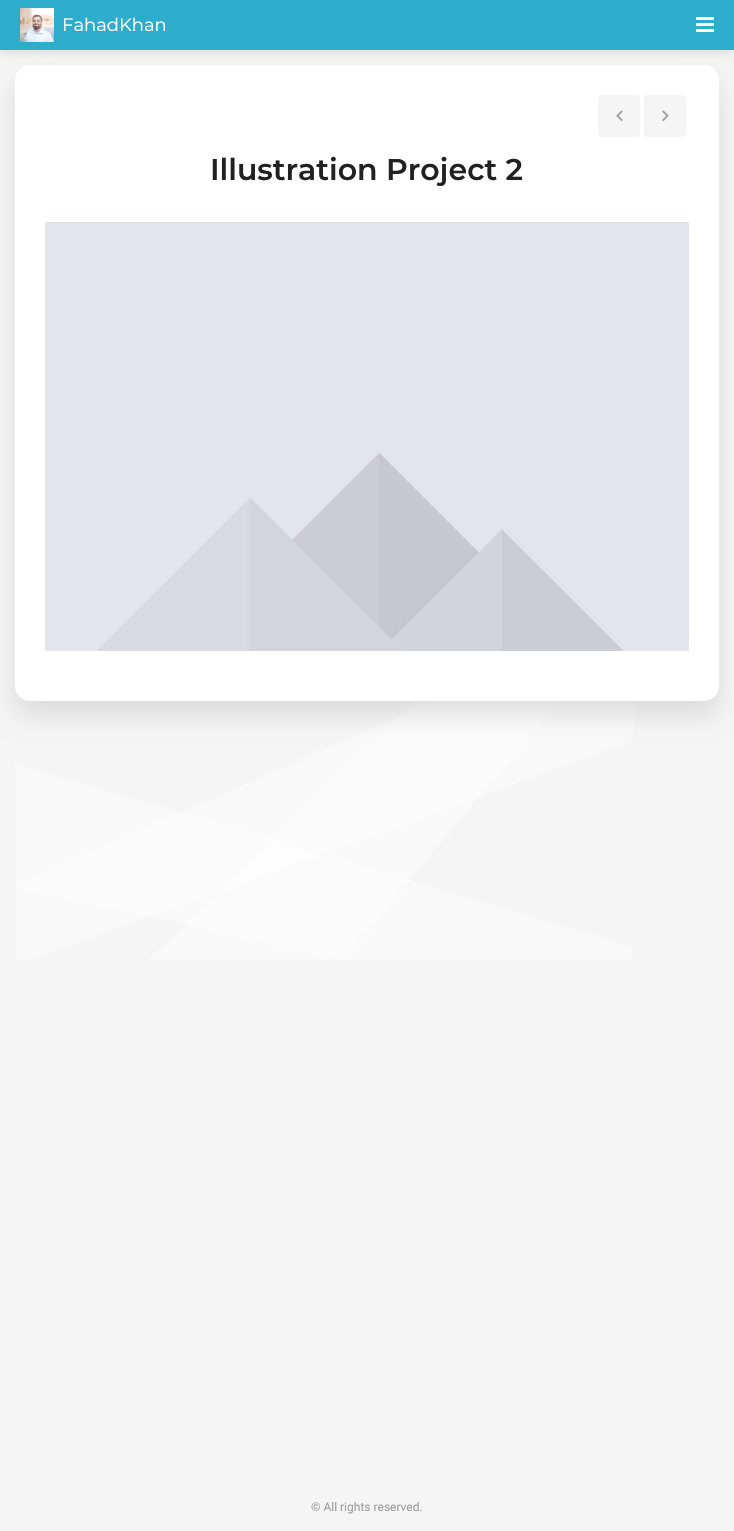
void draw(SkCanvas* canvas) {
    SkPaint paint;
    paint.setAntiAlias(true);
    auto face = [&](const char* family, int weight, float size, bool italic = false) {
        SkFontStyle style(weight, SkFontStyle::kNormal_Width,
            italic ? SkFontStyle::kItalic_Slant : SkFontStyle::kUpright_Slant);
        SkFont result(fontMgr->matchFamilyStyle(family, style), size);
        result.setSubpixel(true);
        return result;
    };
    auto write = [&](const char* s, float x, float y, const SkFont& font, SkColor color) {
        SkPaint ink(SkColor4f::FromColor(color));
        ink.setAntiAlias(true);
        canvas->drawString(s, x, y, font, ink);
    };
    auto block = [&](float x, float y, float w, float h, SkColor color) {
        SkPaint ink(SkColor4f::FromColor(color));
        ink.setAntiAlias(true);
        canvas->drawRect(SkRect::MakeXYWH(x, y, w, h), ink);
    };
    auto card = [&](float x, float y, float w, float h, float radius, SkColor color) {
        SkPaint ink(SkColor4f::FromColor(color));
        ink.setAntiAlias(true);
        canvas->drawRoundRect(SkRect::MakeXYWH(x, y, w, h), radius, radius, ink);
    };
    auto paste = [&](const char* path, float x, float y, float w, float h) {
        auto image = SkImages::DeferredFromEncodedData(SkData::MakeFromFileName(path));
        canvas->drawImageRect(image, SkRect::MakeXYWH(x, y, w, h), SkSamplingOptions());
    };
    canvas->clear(SkColorSetRGB(245, 245, 245));
    paste("pic1.png", 15, 701, 618, 259);
    paint.setColor(SkColorSetARGB(26, 0, 0, 0));
    paint.setMaskFilter(SkMaskFilter::MakeBlur(kNormal_SkBlurStyle, 12.5f));
    canvas->drawRoundRect(SkRect::MakeXYWH(15, 80, 704, 636), 15, 15, paint);
    paint.setMaskFilter(nullptr);
    card(15, 65, 704, 636, 15, SK_ColorWHITE);
    paint.setMaskFilter(SkMaskFilter::MakeBlur(kNormal_SkBlurStyle, 4));
    canvas->drawRect(SkRect::MakeXYWH(0, 3, 734, 50), paint);
    paint.setMaskFilter(nullptr);
    block(0, 0, 734, 50, SkColorSetRGB(46, 172, 203));
    paste("pic2.png", 20, 8, 34, 34);
    auto kFont1 = face("Montserrat", 400, 18);
    write("FahadKhan", 62, 31, kFont1, SK_ColorWHITE);
    paste("pic3.png", 696, 17, 18, 15);
    card(598, 95, 42, 42, 3, SkColorSetRGB(245, 245, 245));
    paste("pic4.png", 616, 110, 7, 12);
    card(644, 95, 42, 42, 3, SkColorSetRGB(245, 245, 245));
    paste("pic5.png", 662, 110, 7, 12);
    auto kFont2 = face("Montserrat", 600, 30);
    write("Illustration Project 2", 210, 180, kFont2, SkColorSetRGB(33, 33, 33));
    paste("pic6.png", 45, 222, 644, 429);
    auto kFont3 = face("Roboto", 400, 12);
    write("© All rights reserved.", 311, 1511, kFont3, SkColorSetRGB(158, 158, 158));
}
